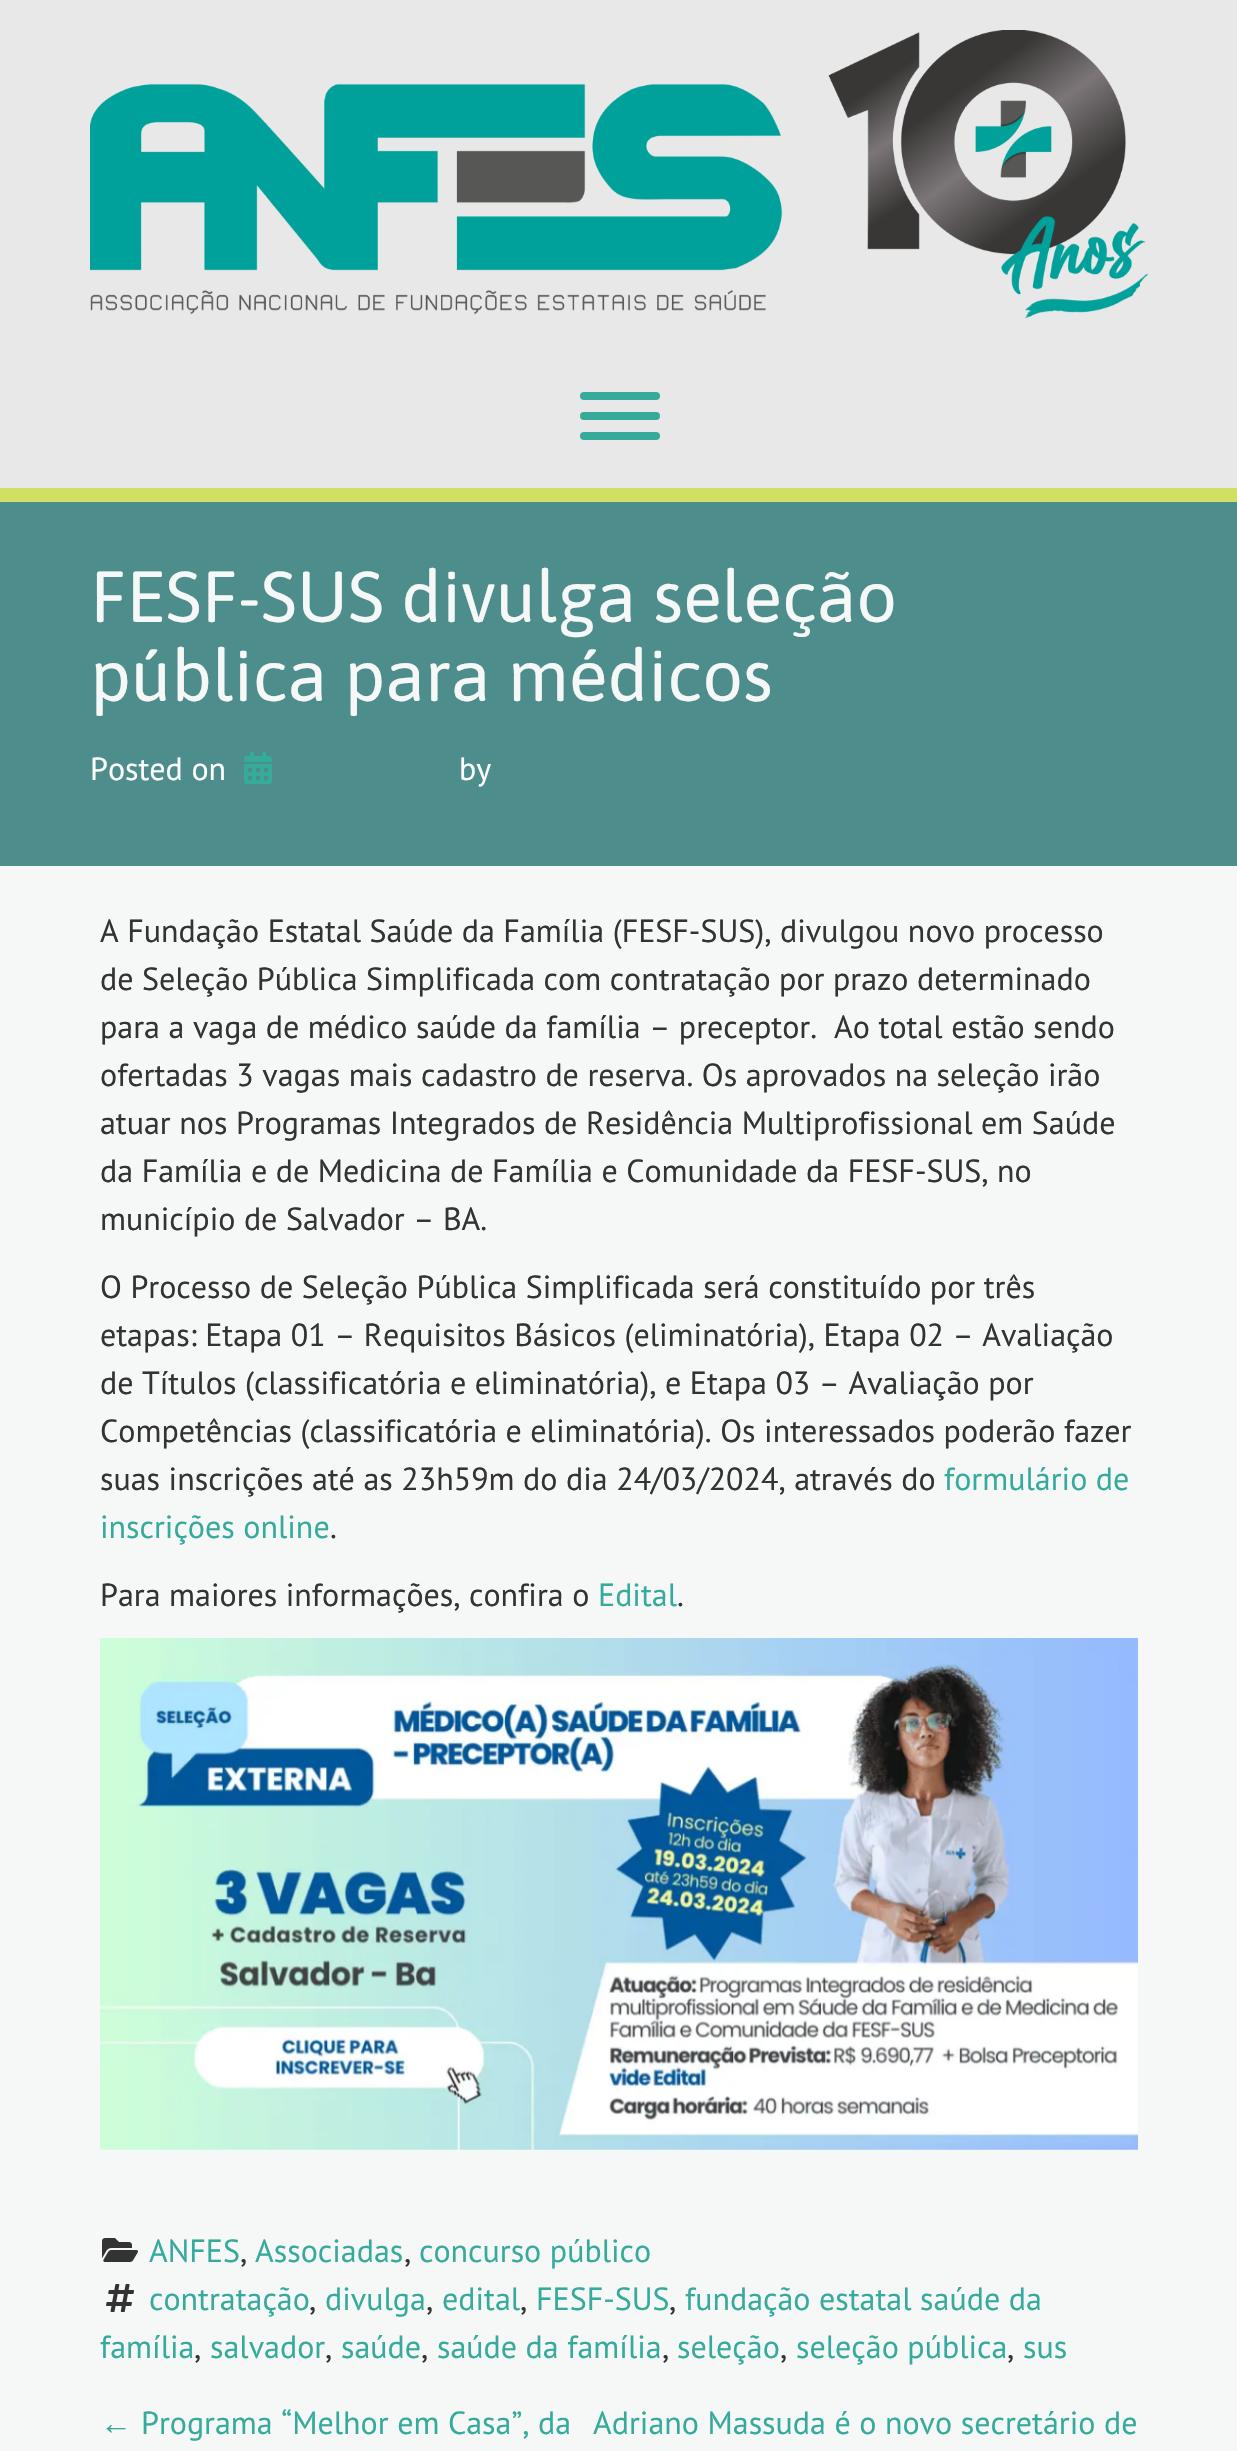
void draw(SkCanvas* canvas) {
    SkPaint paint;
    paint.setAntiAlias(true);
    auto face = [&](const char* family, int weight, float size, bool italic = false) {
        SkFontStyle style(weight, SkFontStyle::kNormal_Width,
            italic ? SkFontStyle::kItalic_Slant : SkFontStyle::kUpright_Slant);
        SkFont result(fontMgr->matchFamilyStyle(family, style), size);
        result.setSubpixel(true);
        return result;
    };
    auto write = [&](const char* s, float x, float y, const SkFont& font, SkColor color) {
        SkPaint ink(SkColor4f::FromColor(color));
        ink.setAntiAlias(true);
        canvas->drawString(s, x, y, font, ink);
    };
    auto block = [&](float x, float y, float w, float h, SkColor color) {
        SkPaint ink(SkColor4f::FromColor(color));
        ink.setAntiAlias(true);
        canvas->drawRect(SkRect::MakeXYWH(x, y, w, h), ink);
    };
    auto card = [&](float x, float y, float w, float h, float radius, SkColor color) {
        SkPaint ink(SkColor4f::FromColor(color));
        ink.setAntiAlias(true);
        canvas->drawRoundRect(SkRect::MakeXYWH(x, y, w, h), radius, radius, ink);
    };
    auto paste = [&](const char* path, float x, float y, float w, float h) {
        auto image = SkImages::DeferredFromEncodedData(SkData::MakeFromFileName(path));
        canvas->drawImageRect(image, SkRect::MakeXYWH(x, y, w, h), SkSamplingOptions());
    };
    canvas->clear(SkColorSetRGB(246, 247, 247));
    block(0, 0, 1237, 488, SkColorSetRGB(232, 232, 232));
    block(0, 488, 1237, 14, SkColorSetRGB(209, 223, 98));
    paste("pic1.png", 90, 30, 1058, 288);
    card(580, 432, 80, 8, 4, SkColorSetRGB(54, 171, 156));
    card(580, 392, 80, 8, 4, SkColorSetRGB(54, 171, 156));
    card(580, 412, 80, 8, 4, SkColorSetRGB(54, 171, 156));
    block(0, 502, 1237, 364, SkColorSetRGB(77, 141, 140));
    auto kFont1 = face("Asap", 400, 72);
    write("FESF-SUS divulga seleção", 90, 622, kFont1, SkColorSetRGB(246, 247, 247));
    write("pública para médicos", 90, 701, kFont1, SkColorSetRGB(246, 247, 247));
    auto kFont2 = face("PT Sans", 400, 32);
    write("Posted on", 90, 780, kFont2, SK_ColorWHITE);
    paste("pic2.png", 244, 752, 28, 32);
    write("by", 459, 780, kFont2, SK_ColorWHITE);
    write("A Fundação Estatal Saúde da Família (FESF-SUS), divulgou novo processo", 100, 942, kFont2, SkColorSetRGB(51, 51, 51));
    write("de Seleção Pública Simplificada com contratação por prazo determinado", 100, 990, kFont2, SkColorSetRGB(51, 51, 51));
    write("para a vaga de médico saúde da família – preceptor.  Ao total estão sendo", 100, 1038, kFont2, SkColorSetRGB(51, 51, 51));
    write("ofertadas 3 vagas mais cadastro de reserva. Os aprovados na seleção irão", 100, 1086, kFont2, SkColorSetRGB(51, 51, 51));
    write("atuar nos Programas Integrados de Residência Multiprofissional em Saúde", 100, 1134, kFont2, SkColorSetRGB(51, 51, 51));
    write("da Família e de Medicina de Família e Comunidade da FESF-SUS, no", 100, 1182, kFont2, SkColorSetRGB(51, 51, 51));
    write("município de Salvador – BA.", 100, 1230, kFont2, SkColorSetRGB(51, 51, 51));
    write("O Processo de Seleção Pública Simplificada será constituído por três", 100, 1298, kFont2, SkColorSetRGB(51, 51, 51));
    write("etapas: Etapa 01 – Requisitos Básicos (eliminatória), Etapa 02 – Avaliação", 100, 1346, kFont2, SkColorSetRGB(51, 51, 51));
    write("de Títulos (classificatória e eliminatória), e Etapa 03 – Avaliação por", 100, 1394, kFont2, SkColorSetRGB(51, 51, 51));
    write("Competências (classificatória e eliminatória). Os interessados poderão fazer", 100, 1442, kFont2, SkColorSetRGB(51, 51, 51));
    write("suas inscrições até as 23h59m do dia 24/03/2024, através do", 100, 1490, kFont2, SkColorSetRGB(51, 51, 51));
    write("formulário de", 944, 1490, kFont2, SkColorSetRGB(54, 171, 156));
    write("inscrições online", 100, 1538, kFont2, SkColorSetRGB(54, 171, 156));
    write(".", 330, 1538, kFont2, SkColorSetRGB(51, 51, 51));
    write("Para maiores informações, confira o", 100, 1606, kFont2, SkColorSetRGB(51, 51, 51));
    write("Edital", 598, 1606, kFont2, SkColorSetRGB(54, 171, 156));
    write(".", 677, 1606, kFont2, SkColorSetRGB(51, 51, 51));
    paste("pic3.png", 100, 1638, 1038, 512);
    paste("pic4.png", 102, 2238, 36, 24);
    write("ANFES", 149, 2262, kFont2, SkColorSetRGB(54, 171, 156));
    write(",", 240, 2262, kFont2, SkColorSetRGB(51, 51, 51));
    write("Associadas", 255, 2262, kFont2, SkColorSetRGB(54, 171, 156));
    write(",", 404, 2262, kFont2, SkColorSetRGB(51, 51, 51));
    write("concurso público", 419, 2262, kFont2, SkColorSetRGB(54, 171, 156));
    paste("pic5.png", 106, 2284, 28, 28);
    write("contratação", 149, 2310, kFont2, SkColorSetRGB(54, 171, 156));
    write(",", 309, 2310, kFont2, SkColorSetRGB(51, 51, 51));
    write("divulga", 325, 2310, kFont2, SkColorSetRGB(54, 171, 156));
    write(",", 426, 2310, kFont2, SkColorSetRGB(51, 51, 51));
    write("edital", 442, 2310, kFont2, SkColorSetRGB(54, 171, 156));
    write(",", 520, 2310, kFont2, SkColorSetRGB(51, 51, 51));
    write("FESF-SUS", 536, 2310, kFont2, SkColorSetRGB(54, 171, 156));
    write(",", 669, 2310, kFont2, SkColorSetRGB(51, 51, 51));
    write("fundação estatal saúde da", 685, 2310, kFont2, SkColorSetRGB(54, 171, 156));
    write("família", 100, 2358, kFont2, SkColorSetRGB(54, 171, 156));
    write(",", 194, 2358, kFont2, SkColorSetRGB(51, 51, 51));
    write("salvador", 210, 2358, kFont2, SkColorSetRGB(54, 171, 156));
    write(",", 325, 2358, kFont2, SkColorSetRGB(51, 51, 51));
    write("saúde", 341, 2358, kFont2, SkColorSetRGB(54, 171, 156));
    write(",", 421, 2358, kFont2, SkColorSetRGB(51, 51, 51));
    write("saúde da família", 437, 2358, kFont2, SkColorSetRGB(54, 171, 156));
    write(",", 662, 2358, kFont2, SkColorSetRGB(51, 51, 51));
    write("seleção", 677, 2358, kFont2, SkColorSetRGB(54, 171, 156));
    write(",", 780, 2358, kFont2, SkColorSetRGB(51, 51, 51));
    write("seleção pública", 796, 2358, kFont2, SkColorSetRGB(54, 171, 156));
    write(",", 1007, 2358, kFont2, SkColorSetRGB(51, 51, 51));
    write("sus", 1023, 2358, kFont2, SkColorSetRGB(54, 171, 156));
    auto kFont3 = face("Liberation Serif", 400, 32);
    write("←", 100, 2434, kFont3, SkColorSetRGB(54, 171, 156));
    write("Programa “Melhor em Casa”, da", 141, 2434, kFont2, SkColorSetRGB(54, 171, 156));
    write("Adriano Massuda é o novo secretário de", 593, 2434, kFont2, SkColorSetRGB(54, 171, 156));
}
